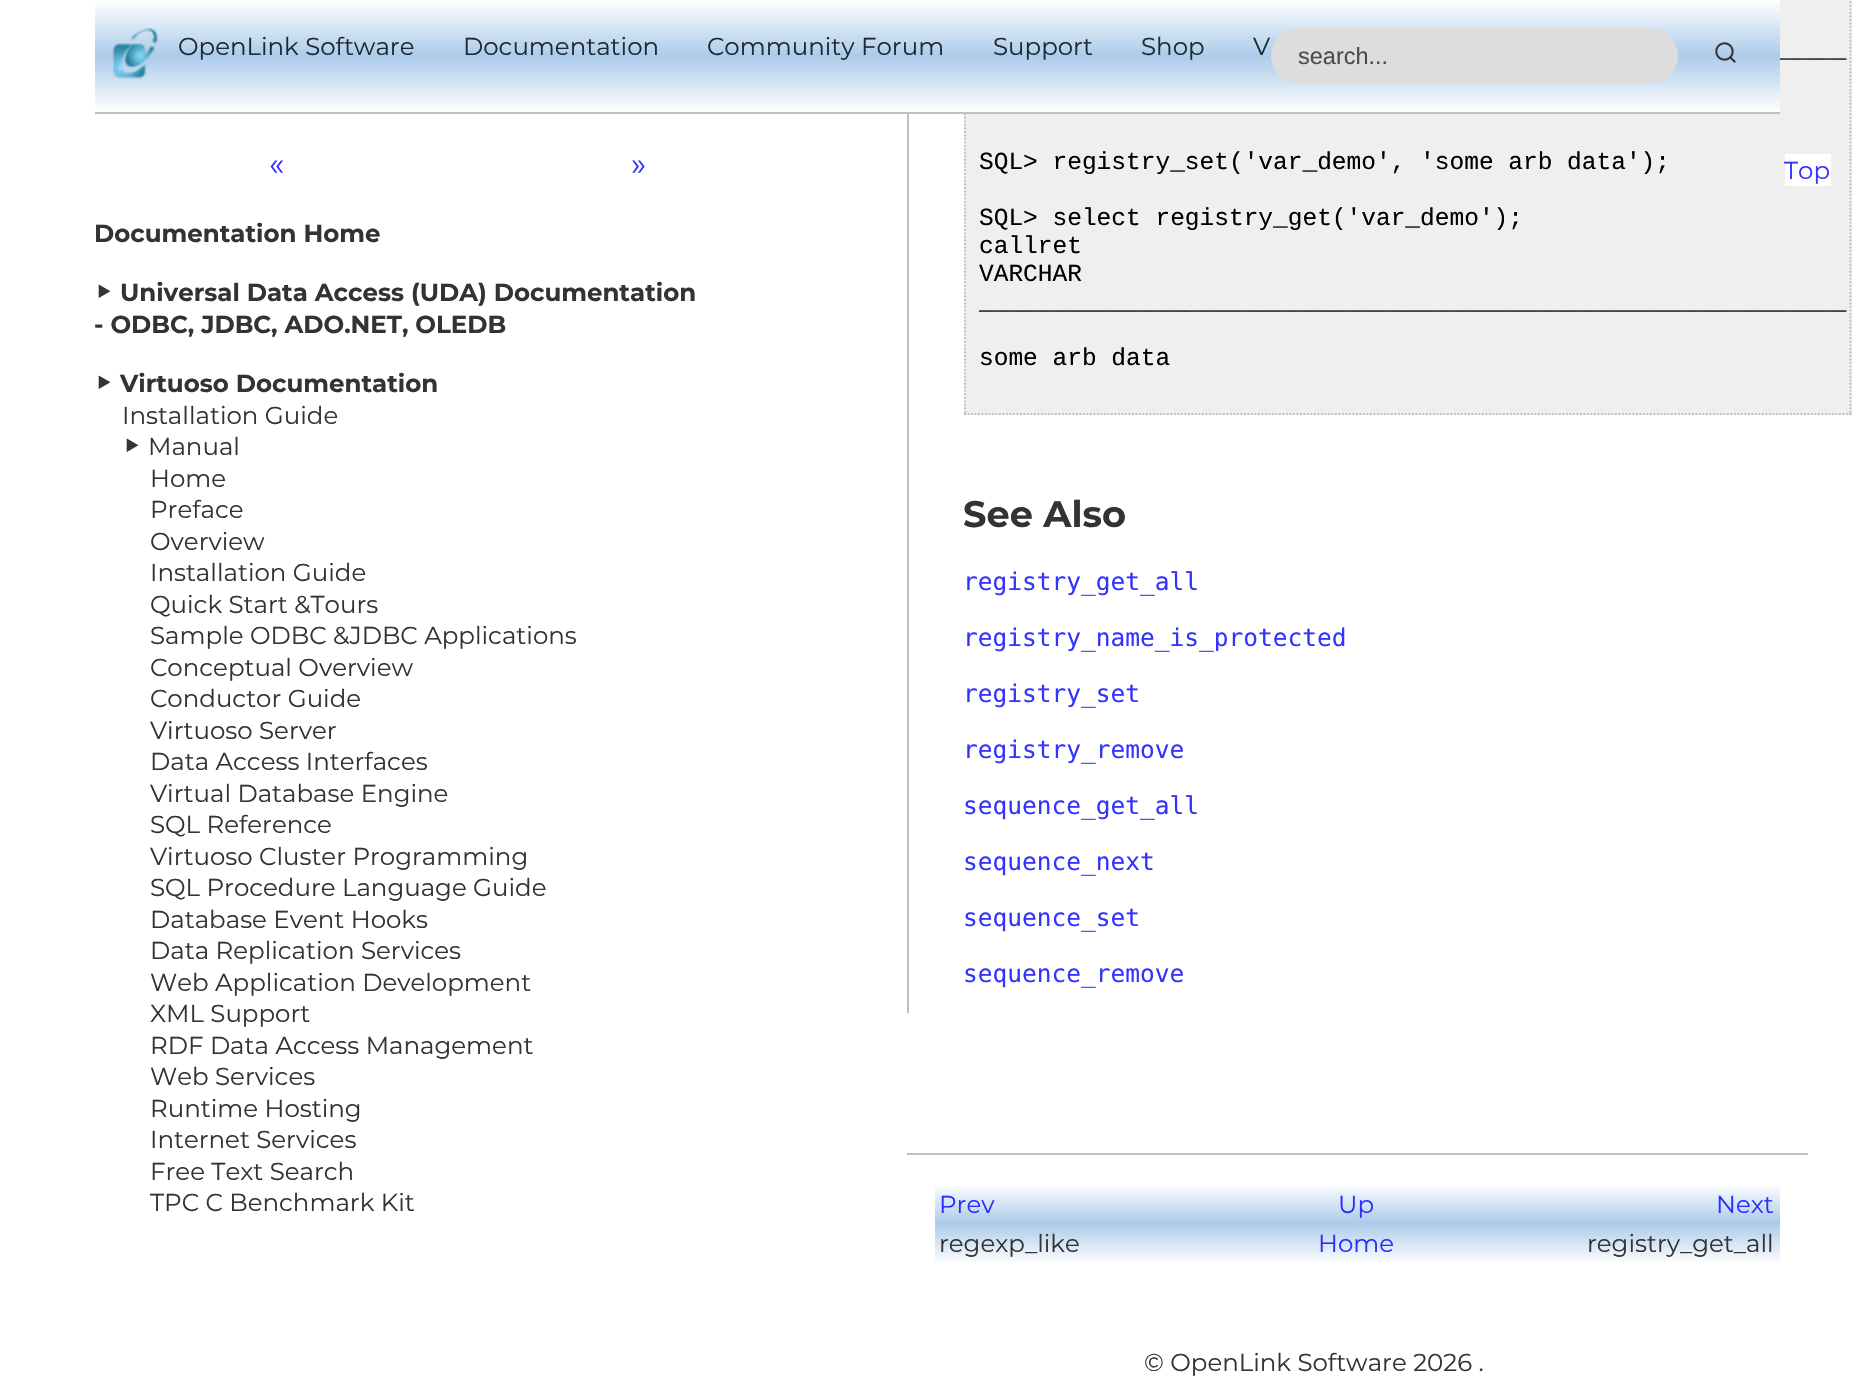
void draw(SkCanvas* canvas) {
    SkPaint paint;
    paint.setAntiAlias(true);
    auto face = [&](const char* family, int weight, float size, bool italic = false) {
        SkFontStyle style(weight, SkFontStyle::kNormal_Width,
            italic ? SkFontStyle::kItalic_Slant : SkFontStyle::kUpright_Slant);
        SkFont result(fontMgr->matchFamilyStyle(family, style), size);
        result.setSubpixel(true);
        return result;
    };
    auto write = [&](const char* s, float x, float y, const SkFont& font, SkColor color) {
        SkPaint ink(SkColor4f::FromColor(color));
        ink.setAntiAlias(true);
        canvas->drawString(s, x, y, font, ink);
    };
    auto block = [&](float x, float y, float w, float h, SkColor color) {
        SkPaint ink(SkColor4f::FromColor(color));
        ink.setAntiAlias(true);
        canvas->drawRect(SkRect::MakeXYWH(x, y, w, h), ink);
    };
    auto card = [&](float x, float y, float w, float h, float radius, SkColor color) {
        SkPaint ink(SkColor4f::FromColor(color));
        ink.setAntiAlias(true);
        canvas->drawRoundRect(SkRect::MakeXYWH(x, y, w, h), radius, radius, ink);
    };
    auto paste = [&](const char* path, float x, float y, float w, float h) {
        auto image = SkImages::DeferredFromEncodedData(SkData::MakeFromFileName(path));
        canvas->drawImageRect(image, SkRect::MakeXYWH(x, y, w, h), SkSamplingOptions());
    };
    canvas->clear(SK_ColorWHITE);
    block(964, 0, 888, 415, SkColorSetRGB(239, 239, 239));
    paint.setStyle(SkPaint::kStroke_Style);
    paint.setStrokeWidth(1.8f);
    paint.setColor(SkColorSetRGB(187, 187, 187));
    paint.setPathEffect(SkDashPathEffect::Make({{1.75f, 1.75f}}, 0));
    canvas->drawPath(SkPathBuilder().moveTo(1850.5f, -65).lineTo(1850.5f, 415).detach(), paint);
    paint.setPathEffect(nullptr);
    paint.setPathEffect(SkDashPathEffect::Make({{1.75f, 1.75f}}, 0));
    canvas->drawPath(SkPathBuilder().moveTo(964, 414).lineTo(1851.5f, 414).detach(), paint);
    paint.setPathEffect(nullptr);
    paint.setPathEffect(SkDashPathEffect::Make({{1.75f, 1.75f}}, 0));
    canvas->drawPath(SkPathBuilder().moveTo(965, -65).lineTo(965, 415).detach(), paint);
    paint.setPathEffect(nullptr);
    auto kFont1 = face("Liberation Mono", 400, 24.5f);
    write("_____", 1773, 57, kFont1, SK_ColorBLACK);
    paint.setStyle(SkPaint::kFill_Style);
    {
        const SkColor colors[] = {SK_ColorWHITE, SkColorSetRGB(172, 203, 234), SK_ColorWHITE};
        const float stops[] = {0, 0.5f, 1};
        const SkPoint ends[] = {{937, 0}, {937, 112}};
        paint.setShader(SkGradientShader::MakeLinear(ends, colors, stops, 3, SkTileMode::kClamp));
        paint.setAlpha(255);
    }
    canvas->drawRect(SkRect::MakeXYWH(95, 0, 1685, 112), paint);
    block(95, 112, 1685, 2, SkColorSetRGB(192, 192, 192));
    paste("pic1.png", 112, 28, 46, 52);
    auto kFont2 = face("Montserrat", 400, 24.5f);
    write("OpenLink Software", 178, 55, kFont2, SkColorSetRGB(28, 43, 51));
    write("Documentation", 463, 55, kFont2, SkColorSetRGB(28, 43, 51));
    write("Community Forum", 707, 55, kFont2, SkColorSetRGB(28, 43, 51));
    write("Support", 993, 55, kFont2, SkColorSetRGB(28, 43, 51));
    write("Shop", 1141, 55, kFont2, SkColorSetRGB(28, 43, 51));
    write("V", 1253, 55, kFont2, SkColorSetRGB(28, 43, 51));
    card(1271, 28, 407, 56, 28, SkColorSetRGB(221, 221, 221));
    auto kFont3 = face("Liberation Sans", 400, 23.5f);
    write("search...", 1298, 64, kFont3, SkColorSetRGB(75, 75, 75));
    paste("pic2.png", 1715, 42, 21, 21);
    auto kFont4 = face("Montserrat", 400, 32);
    write("«", 269, 175, kFont4, SkColorSetRGB(51, 51, 255));
    write("»", 631, 175, kFont4, SkColorSetRGB(51, 51, 255));
    auto kFont5 = face("Montserrat", 700, 24.5f);
    write("Documentation Home", 94, 242, kFont5, SkColorSetRGB(51, 51, 51));
    auto kFont6 = face("FreeSans", 400, 24.5f);
    write("⯈", 94, 301, kFont6, SkColorSetRGB(51, 51, 51));
    write("Universal Data Access (UDA) Documentation", 120, 301, kFont5, SkColorSetRGB(51, 51, 51));
    canvas->save();
    canvas->clipRect(SkRect::MakeXYWH(95, 189, 784, 1041));
    write("- ODBC, JDBC, ADO.NET, OLEDB", 94, 333, kFont5, SkColorSetRGB(51, 51, 51));
    canvas->restore();
    write("⯈", 94, 392, kFont6, SkColorSetRGB(51, 51, 51));
    write("Virtuoso Documentation", 120, 392, kFont5, SkColorSetRGB(51, 51, 51));
    write("Installation Guide", 122, 424, kFont2, SkColorSetRGB(51, 51, 51));
    write("⯈", 122, 455, kFont6, SkColorSetRGB(51, 51, 51));
    write("Manual", 148, 455, kFont2, SkColorSetRGB(51, 51, 51));
    write("Home", 150, 487, kFont2, SkColorSetRGB(51, 51, 51));
    write("Preface", 150, 518, kFont2, SkColorSetRGB(51, 51, 51));
    write("Overview", 150, 550, kFont2, SkColorSetRGB(51, 51, 51));
    write("Installation Guide", 150, 581, kFont2, SkColorSetRGB(51, 51, 51));
    write("Quick Start &Tours", 150, 613, kFont2, SkColorSetRGB(51, 51, 51));
    write("Sample ODBC &JDBC Applications", 150, 644, kFont2, SkColorSetRGB(51, 51, 51));
    write("Conceptual Overview", 150, 676, kFont2, SkColorSetRGB(51, 51, 51));
    write("Conductor Guide", 150, 707, kFont2, SkColorSetRGB(51, 51, 51));
    write("Virtuoso Server", 150, 739, kFont2, SkColorSetRGB(51, 51, 51));
    write("Data Access Interfaces", 150, 770, kFont2, SkColorSetRGB(51, 51, 51));
    write("Virtual Database Engine", 150, 802, kFont2, SkColorSetRGB(51, 51, 51));
    write("SQL Reference", 150, 833, kFont2, SkColorSetRGB(51, 51, 51));
    write("Virtuoso Cluster Programming", 150, 865, kFont2, SkColorSetRGB(51, 51, 51));
    write("SQL Procedure Language Guide", 150, 896, kFont2, SkColorSetRGB(51, 51, 51));
    write("Database Event Hooks", 150, 928, kFont2, SkColorSetRGB(51, 51, 51));
    write("Data Replication Services", 150, 959, kFont2, SkColorSetRGB(51, 51, 51));
    write("Web Application Development", 150, 991, kFont2, SkColorSetRGB(51, 51, 51));
    write("XML Support", 150, 1022, kFont2, SkColorSetRGB(51, 51, 51));
    write("RDF Data Access Management", 150, 1054, kFont2, SkColorSetRGB(51, 51, 51));
    write("Web Services", 150, 1085, kFont2, SkColorSetRGB(51, 51, 51));
    write("Runtime Hosting", 150, 1117, kFont2, SkColorSetRGB(51, 51, 51));
    write("Internet Services", 150, 1148, kFont2, SkColorSetRGB(51, 51, 51));
    write("Free Text Search", 150, 1180, kFont2, SkColorSetRGB(51, 51, 51));
    write("TPC C Benchmark Kit", 150, 1211, kFont2, SkColorSetRGB(51, 51, 51));
    block(907, 114, 2, 899, SkColorSetRGB(192, 192, 192));
    write("SQL> registry_set('var_demo', 'some arb data');", 979, 169, kFont1, SK_ColorBLACK);
    write("SQL> select registry_get('var_demo');", 979, 225, kFont1, SK_ColorBLACK);
    write("callret", 979, 253, kFont1, SK_ColorBLACK);
    write("VARCHAR", 979, 281, kFont1, SK_ColorBLACK);
    write("___________________________________________________________", 979, 309, kFont1, SK_ColorBLACK);
    write("some arb data", 979, 365, kFont1, SK_ColorBLACK);
    auto kFont7 = face("Montserrat", 700, 36.75f);
    write("See Also", 963, 527, kFont7, SkColorSetRGB(51, 51, 51));
    auto kFont8 = face("DejaVu Sans Mono", 400, 24.5f);
    write("registry_get_all", 963, 590, kFont8, SkColorSetRGB(51, 51, 255));
    write("registry_name_is_protected", 963, 646, kFont8, SkColorSetRGB(51, 51, 255));
    write("registry_set", 963, 702, kFont8, SkColorSetRGB(51, 51, 255));
    write("registry_remove", 963, 758, kFont8, SkColorSetRGB(51, 51, 255));
    write("sequence_get_all", 963, 814, kFont8, SkColorSetRGB(51, 51, 255));
    write("sequence_next", 963, 870, kFont8, SkColorSetRGB(51, 51, 255));
    write("sequence_set", 963, 926, kFont8, SkColorSetRGB(51, 51, 255));
    write("sequence_remove", 963, 982, kFont8, SkColorSetRGB(51, 51, 255));
    block(1785, 154, 46, 32, SK_ColorWHITE);
    write("Top", 1784, 179, kFont2, SkColorSetRGB(51, 51, 255));
    block(907, 1153, 901, 2, SkColorSetRGB(192, 192, 192));
    {
        const SkColor colors[] = {SK_ColorWHITE, SkColorSetRGB(172, 203, 234), SK_ColorWHITE};
        const float stops[] = {0, 0.5f, 1};
        const SkPoint ends[] = {{1357, 1183}, {1357, 1264}};
        paint.setShader(SkGradientShader::MakeLinear(ends, colors, stops, 3, SkTileMode::kClamp));
        paint.setAlpha(255);
    }
    canvas->drawRect(SkRect::MakeXYWH(935, 1184, 845, 79), paint);
    write("Prev", 939, 1213, kFont2, SkColorSetRGB(42, 45, 253));
    write("Up", 1338, 1213, kFont2, SkColorSetRGB(42, 45, 253));
    write("Next", 1716, 1213, kFont2, SkColorSetRGB(42, 45, 253));
    write("regexp_like", 939, 1252, kFont2, SkColorSetRGB(51, 51, 51));
    write("Home", 1318, 1252, kFont2, SkColorSetRGB(42, 45, 253));
    write("registry_get_all", 1587, 1252, kFont2, SkColorSetRGB(51, 51, 51));
    write("© OpenLink Software 2026 .", 1144, 1371, kFont2, SkColorSetRGB(51, 51, 51));
}
